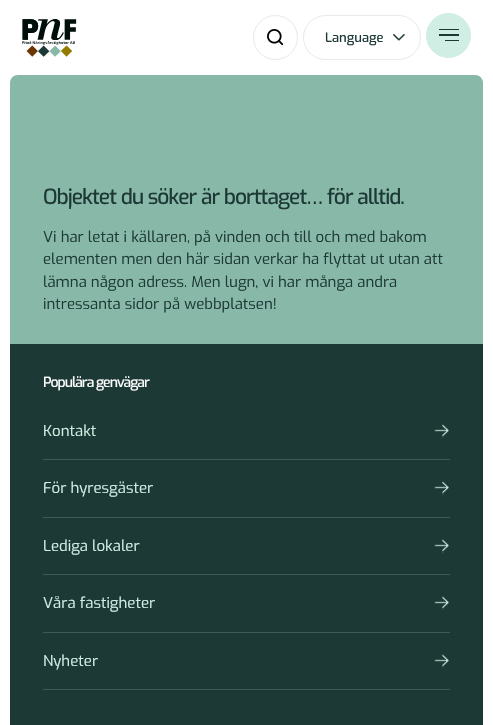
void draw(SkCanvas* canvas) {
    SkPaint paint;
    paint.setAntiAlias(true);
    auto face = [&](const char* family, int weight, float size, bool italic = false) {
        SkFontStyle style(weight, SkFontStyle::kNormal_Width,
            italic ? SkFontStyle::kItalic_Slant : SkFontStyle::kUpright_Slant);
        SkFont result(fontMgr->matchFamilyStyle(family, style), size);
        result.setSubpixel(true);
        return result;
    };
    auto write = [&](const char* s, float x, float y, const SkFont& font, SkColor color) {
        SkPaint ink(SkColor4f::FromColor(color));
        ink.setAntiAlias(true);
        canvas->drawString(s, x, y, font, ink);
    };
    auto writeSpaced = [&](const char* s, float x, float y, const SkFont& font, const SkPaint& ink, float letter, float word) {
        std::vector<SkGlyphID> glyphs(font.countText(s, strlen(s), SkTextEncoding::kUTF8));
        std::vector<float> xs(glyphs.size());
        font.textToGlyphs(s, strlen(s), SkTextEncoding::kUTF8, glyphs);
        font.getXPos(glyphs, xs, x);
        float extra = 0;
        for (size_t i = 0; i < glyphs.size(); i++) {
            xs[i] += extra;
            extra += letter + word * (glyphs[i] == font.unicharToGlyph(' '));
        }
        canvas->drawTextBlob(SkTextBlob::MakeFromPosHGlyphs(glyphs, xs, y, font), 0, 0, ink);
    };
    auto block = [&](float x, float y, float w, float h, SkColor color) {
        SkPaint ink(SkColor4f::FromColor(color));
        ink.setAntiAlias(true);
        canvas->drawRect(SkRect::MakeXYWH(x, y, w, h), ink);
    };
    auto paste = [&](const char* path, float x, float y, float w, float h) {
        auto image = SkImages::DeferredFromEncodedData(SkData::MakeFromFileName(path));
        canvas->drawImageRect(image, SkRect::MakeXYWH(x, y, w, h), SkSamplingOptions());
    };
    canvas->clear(SK_ColorWHITE);
    paste("pic1.png", 22, 19, 55, 38);
    paint.setStyle(SkPaint::kStroke_Style);
    paint.setStrokeWidth(1);
    paint.setColor(SkColorSetRGB(233, 233, 233));
    canvas->drawCircle(275.5f, 37.5f, 22, paint);
    paste("pic2.png", 267, 29, 17, 17);
    canvas->drawRoundRect(SkRect::MakeXYWH(303.5f, 15.5f, 117, 44), 22, 22, paint);
    auto kFont1 = face("Exo", 500, 13);
    write("Language", 325, 42, kFont1, SkColorSetRGB(29, 57, 54));
    paste("pic3.png", 393, 34, 12, 7);
    paint.setStyle(SkPaint::kFill_Style);
    paint.setColor(SkColorSetRGB(209, 238, 228));
    canvas->drawCircle(448.5f, 35.5f, 22, paint);
    paint.setStyle(SkPaint::kStroke_Style);
    canvas->drawCircle(448.5f, 35.5f, 22, paint);
    block(439, 29, 20, 1, SkColorSetRGB(29, 57, 54));
    block(439, 34, 20, 2, SkColorSetRGB(29, 57, 54));
    block(445, 40, 14, 1, SkColorSetRGB(29, 57, 54));
    paint.setStyle(SkPaint::kFill_Style);
    paint.setColor(SkColorSetRGB(136, 185, 168));
    canvas->drawPath(SkPathBuilder().moveTo(18, 75).lineTo(475, 75).cubicTo(479.5f, 75, 483, 78.5f, 483, 83).lineTo(483, 344).lineTo(10, 344).lineTo(10, 83).cubicTo(10, 78.5f, 13.5f, 75, 18, 75).close().detach(), paint);
    auto kFont2 = face("Exo", 500, 21);
    paint.setColor(SkColorSetRGB(29, 57, 54));
    writeSpaced("Objektet du söker är borttaget… för alltid.", 43, 204, kFont2, paint, -1, 0);
    auto kFont3 = face("Exo", 400, 15);
    write("Vi har letat i källaren, på vinden och till och med bakom", 43, 242, kFont3, SkColorSetRGB(29, 57, 54));
    write("elementen men den här sidan verkar ha flyttat ut utan att", 43, 264, kFont3, SkColorSetRGB(29, 57, 54));
    write("lämna någon adress. Men lugn, vi har många andra", 43, 287, kFont3, SkColorSetRGB(29, 57, 54));
    write("intressanta sidor på webbplatsen!", 43, 309, kFont3, SkColorSetRGB(29, 57, 54));
    block(10, 344, 473, 381, SkColorSetRGB(29, 57, 54));
    auto kFont4 = face("Exo", 500, 14);
    paint.setColor(SK_ColorWHITE);
    writeSpaced("Populära genvägar", 43, 387, kFont4, paint, -1, 0);
    block(43, 459, 407, 1, SkColorSetRGB(57, 92, 88));
    write("Kontakt", 43, 436, kFont3, SkColorSetRGB(209, 238, 228));
    paste("pic4.png", 434, 424, 15, 14);
    block(43, 517, 407, 1, SkColorSetRGB(57, 92, 88));
    write("För hyresgäster", 43, 493, kFont3, SkColorSetRGB(209, 238, 228));
    paste("pic4.png", 434, 481, 15, 14);
    block(43, 574, 407, 1, SkColorSetRGB(57, 92, 88));
    write("Lediga lokaler", 43, 551, kFont3, SkColorSetRGB(209, 238, 228));
    paste("pic4.png", 434, 539, 15, 14);
    block(43, 632, 407, 1, SkColorSetRGB(57, 92, 88));
    write("Våra fastigheter", 43, 608, kFont3, SkColorSetRGB(209, 238, 228));
    paste("pic4.png", 434, 596, 15, 14);
    block(43, 689, 407, 1, SkColorSetRGB(57, 92, 88));
    write("Nyheter", 43, 666, kFont3, SkColorSetRGB(209, 238, 228));
    paste("pic4.png", 434, 654, 15, 14);
}
